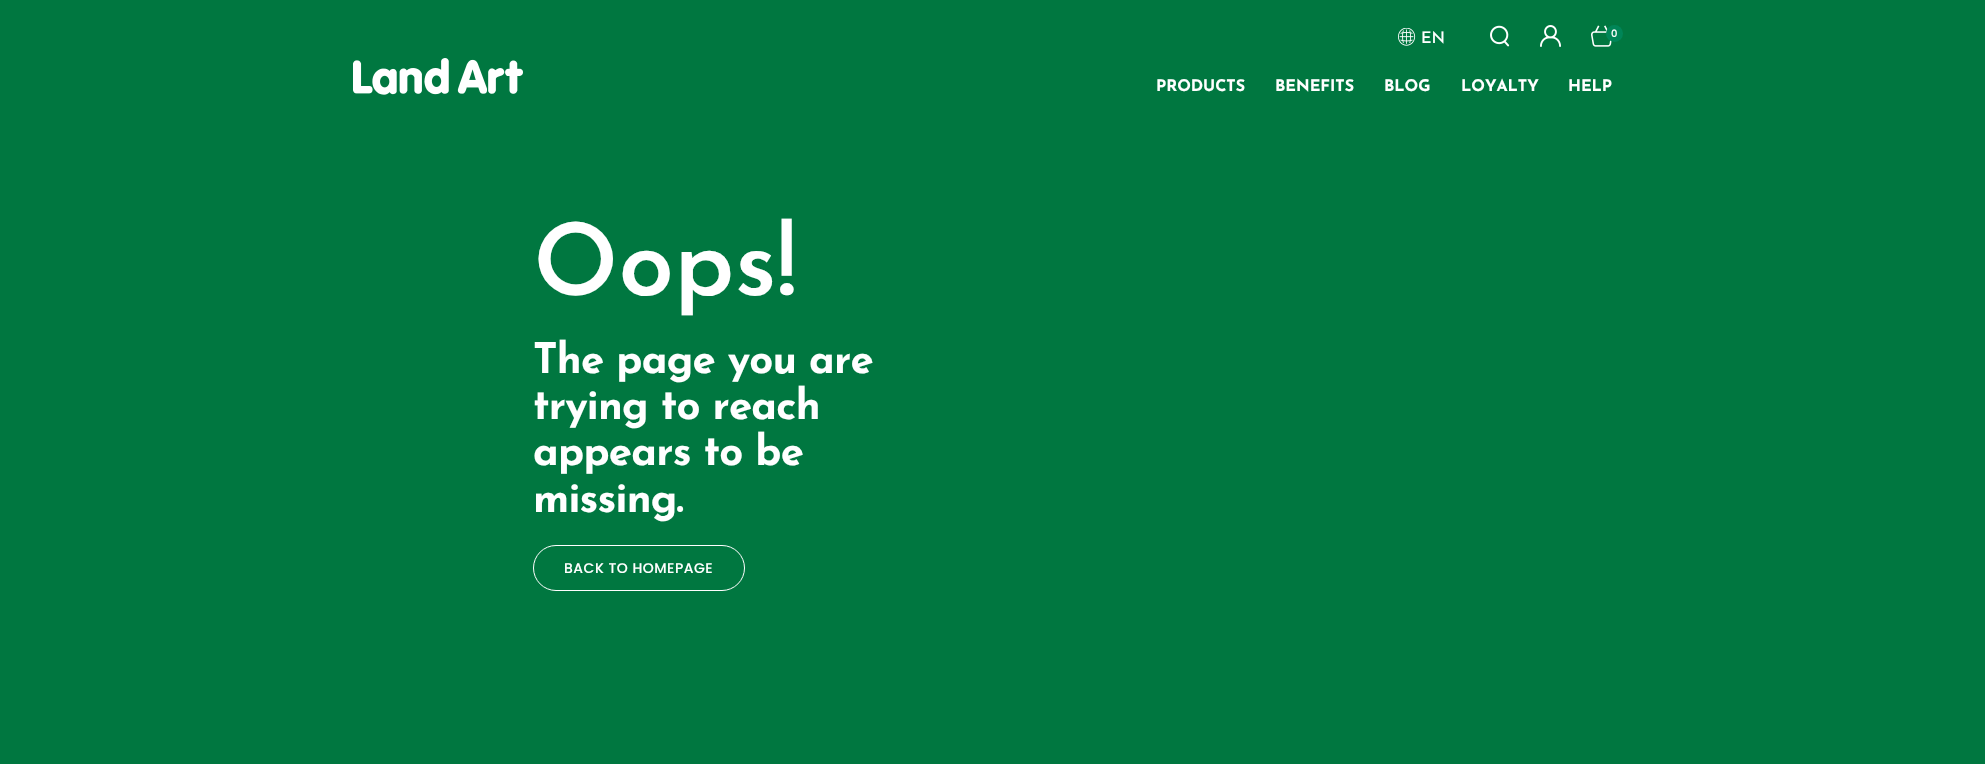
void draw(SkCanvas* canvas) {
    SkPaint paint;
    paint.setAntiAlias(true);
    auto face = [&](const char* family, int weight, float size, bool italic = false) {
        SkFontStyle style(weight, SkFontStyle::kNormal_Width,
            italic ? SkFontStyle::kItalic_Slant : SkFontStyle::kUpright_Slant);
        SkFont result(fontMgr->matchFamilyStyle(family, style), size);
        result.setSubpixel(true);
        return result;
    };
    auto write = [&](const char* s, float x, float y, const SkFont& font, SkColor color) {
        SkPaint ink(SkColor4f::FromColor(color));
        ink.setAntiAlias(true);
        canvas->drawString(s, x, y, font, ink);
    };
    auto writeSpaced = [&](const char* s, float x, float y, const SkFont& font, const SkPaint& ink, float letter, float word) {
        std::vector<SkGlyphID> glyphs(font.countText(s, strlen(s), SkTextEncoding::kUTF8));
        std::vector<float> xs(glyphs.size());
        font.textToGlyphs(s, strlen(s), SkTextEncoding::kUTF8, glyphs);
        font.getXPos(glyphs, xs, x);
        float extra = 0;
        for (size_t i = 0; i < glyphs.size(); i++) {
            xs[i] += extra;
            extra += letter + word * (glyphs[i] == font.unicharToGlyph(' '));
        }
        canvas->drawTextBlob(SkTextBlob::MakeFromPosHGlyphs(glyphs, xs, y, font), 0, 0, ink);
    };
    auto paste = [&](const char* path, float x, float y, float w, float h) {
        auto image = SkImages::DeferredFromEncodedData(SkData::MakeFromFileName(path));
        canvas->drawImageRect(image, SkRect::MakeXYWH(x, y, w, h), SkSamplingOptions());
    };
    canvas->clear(SkColorSetRGB(0, 119, 64));
    paste("pic1.png", 353, 58, 170, 37);
    paste("pic2.png", 1398, 28, 18, 18);
    auto kFont1 = face("Josefin Sans", 500, 16);
    write("EN", 1421, 43, kFont1, SK_ColorWHITE);
    paste("pic3.png", 1490, 25, 20, 22);
    paste("pic4.png", 1540, 25, 21, 22);
    paste("pic5.png", 1591, 25, 21, 22);
    paint.setColor(SkColorSetRGB(0, 133, 87));
    canvas->drawCircle(1614.5f, 33.5f, 8.5f, paint);
    auto kFont2 = face("Poppins", 500, 10);
    write("0", 1611, 37, kFont2, SK_ColorWHITE);
    auto kFont3 = face("Josefin Sans", 700, 16);
    write("PRODUCTS", 1156, 91, kFont3, SK_ColorWHITE);
    write("BENEFITS", 1275, 91, kFont3, SK_ColorWHITE);
    write("BLOG", 1384, 91, kFont3, SK_ColorWHITE);
    write("LOYALTY", 1461, 91, kFont3, SK_ColorWHITE);
    write("HELP", 1568, 91, kFont3, SK_ColorWHITE);
    auto kFont4 = face("Josefin Sans", 600, 100);
    write("Oops!", 533, 295, kFont4, SK_ColorWHITE);
    auto kFont5 = face("Josefin Sans", 700, 42);
    paint.setColor(SK_ColorWHITE);
    writeSpaced("The page you are", 533, 373, kFont5, paint, -0.8f, 0);
    writeSpaced("trying to reach", 533, 419, kFont5, paint, -0.8f, 0);
    writeSpaced("appears to be", 533, 465, kFont5, paint, -0.8f, 0);
    writeSpaced("missing.", 533, 512, kFont5, paint, -0.8f, 0);
    paint.setStyle(SkPaint::kStroke_Style);
    paint.setStrokeWidth(1);
    canvas->drawRoundRect(SkRect::MakeXYWH(533.5f, 545.5f, 211, 45), 22.5f, 22.5f, paint);
    auto kFont6 = face("Poppins", 500, 14);
    paint.setStyle(SkPaint::kFill_Style);
    writeSpaced("BACK TO HOMEPAGE", 564, 573, kFont6, paint, 0.5f, 0);
}
